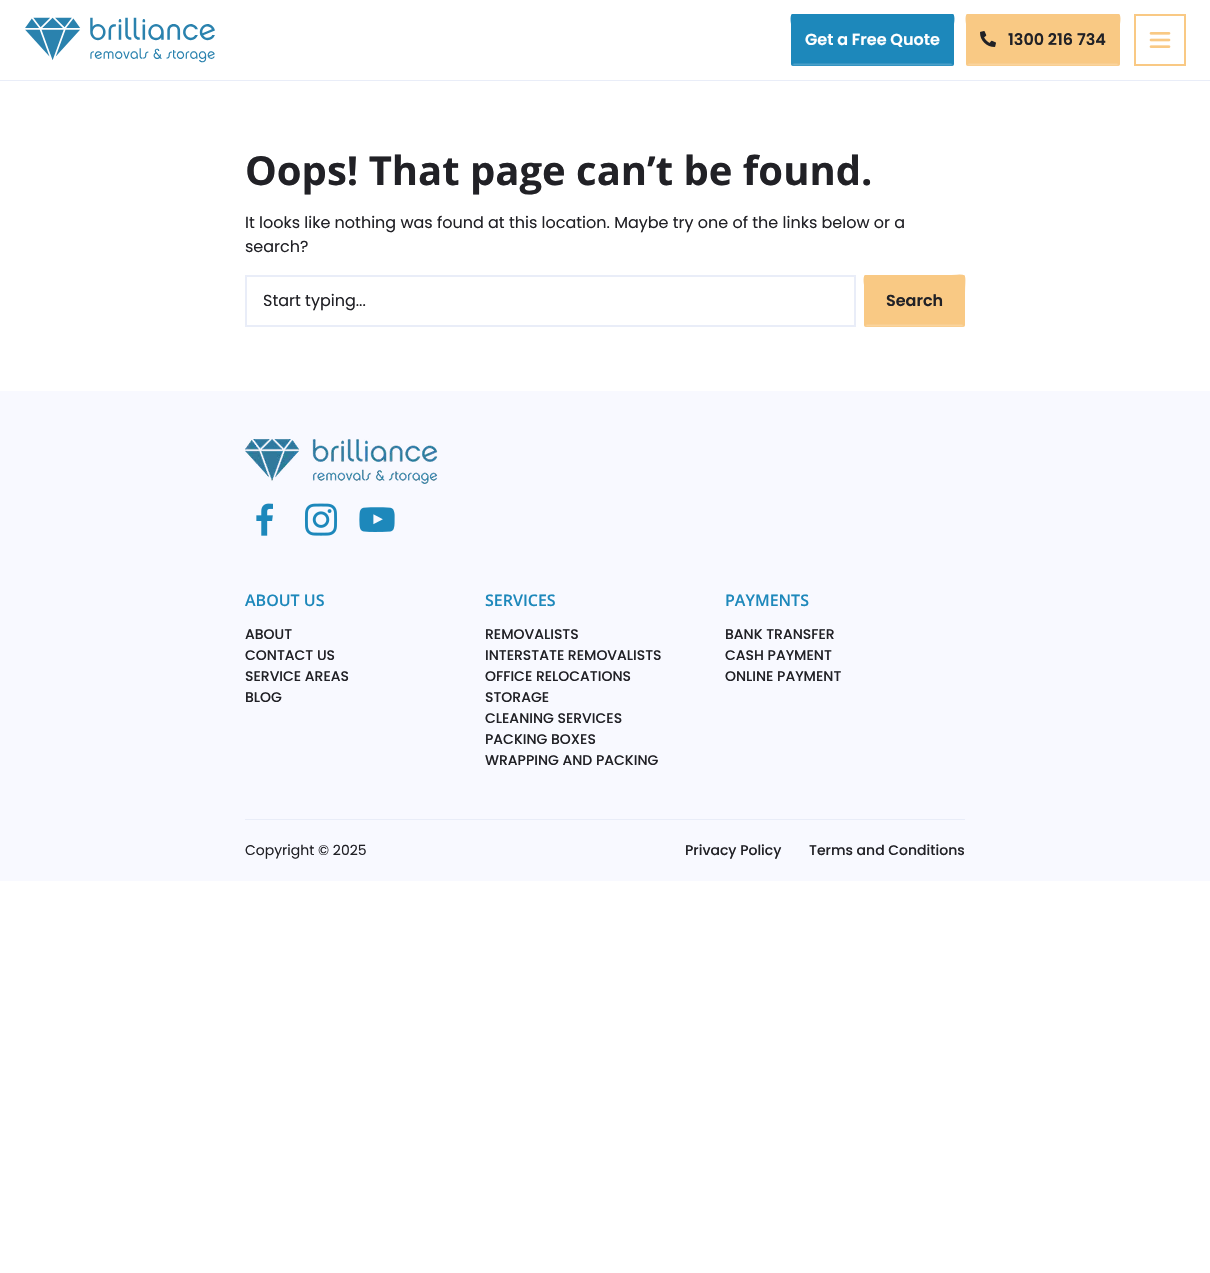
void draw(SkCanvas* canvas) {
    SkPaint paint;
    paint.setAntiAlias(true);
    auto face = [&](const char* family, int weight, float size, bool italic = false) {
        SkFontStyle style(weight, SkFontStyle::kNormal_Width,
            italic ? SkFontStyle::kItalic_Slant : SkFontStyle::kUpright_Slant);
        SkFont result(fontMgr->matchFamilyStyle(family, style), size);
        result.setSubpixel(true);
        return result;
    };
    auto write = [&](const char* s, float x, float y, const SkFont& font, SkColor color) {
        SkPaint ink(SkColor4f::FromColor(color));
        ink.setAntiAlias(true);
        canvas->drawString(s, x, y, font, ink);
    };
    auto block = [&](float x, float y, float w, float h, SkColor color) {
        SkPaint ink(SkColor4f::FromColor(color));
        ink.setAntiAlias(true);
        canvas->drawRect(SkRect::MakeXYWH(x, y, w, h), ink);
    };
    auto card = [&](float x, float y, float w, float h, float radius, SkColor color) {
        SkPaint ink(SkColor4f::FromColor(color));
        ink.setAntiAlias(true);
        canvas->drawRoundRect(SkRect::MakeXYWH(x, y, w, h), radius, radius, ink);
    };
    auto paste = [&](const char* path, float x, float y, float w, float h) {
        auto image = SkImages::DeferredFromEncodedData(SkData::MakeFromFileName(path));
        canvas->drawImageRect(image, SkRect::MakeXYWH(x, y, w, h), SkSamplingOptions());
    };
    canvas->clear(SK_ColorWHITE);
    block(0, 80, 1210, 1, SkColorSetRGB(233, 237, 248));
    paste("pic1.png", 25, 17, 190, 46);
    card(791, 14, 163, 52, 2, SkColorSetRGB(29, 136, 187));
    paint.setStyle(SkPaint::kStroke_Style);
    paint.setStrokeWidth(2);
    paint.setColor(SkColorSetRGB(74, 160, 201));
    canvas->drawPath(SkPathBuilder().moveTo(952.5f, 64.5f).lineTo(792.5f, 64.5f).detach(), paint);
    paint.setColor(SkColorSetRGB(29, 136, 187));
    canvas->drawPath(SkPathBuilder().moveTo(792.5f, 64.5f).lineTo(792, 24).cubicTo(792, 23.5f, 790.5f, 15, 793, 15).lineTo(952, 15).cubicTo(954.5f, 15, 953, 23.5f, 953, 24).lineTo(952.5f, 64.5f).detach(), paint);
    auto kFont1 = face("Poppins", 600, 16);
    write("Get a Free Quote", 805, 45, kFont1, SK_ColorWHITE);
    card(966, 14, 154, 52, 2, SkColorSetRGB(249, 201, 132));
    paint.setColor(SkColorSetRGB(250, 212, 157));
    canvas->drawPath(SkPathBuilder().moveTo(1118.5f, 64.5f).lineTo(967.5f, 64.5f).detach(), paint);
    paint.setColor(SkColorSetRGB(249, 201, 132));
    canvas->drawPath(SkPathBuilder().moveTo(967.5f, 64.5f).lineTo(967, 24).cubicTo(967, 23.5f, 965.5f, 15, 968, 15).lineTo(1118, 15).cubicTo(1120.5f, 15, 1119, 23.5f, 1119, 24).lineTo(1118.5f, 64.5f).detach(), paint);
    paste("pic2.png", 980, 31, 16, 16);
    write("1300 216 734", 1008, 45, kFont1, SkColorSetRGB(33, 33, 38));
    canvas->drawRect(SkRect::MakeXYWH(1135, 15, 50, 50), paint);
    paste("pic3.png", 1149, 32, 22, 16);
    auto kFont2 = face("Open Sans", 700, 40);
    write("Oops! That page can’t be found.", 245, 185, kFont2, SkColorSetRGB(33, 33, 38));
    auto kFont3 = face("Poppins", 400, 16);
    write("It looks like nothing was found at this location. Maybe try one of the links below or a", 245, 228, kFont3, SkColorSetRGB(33, 33, 38));
    write("search?", 245, 252, kFont3, SkColorSetRGB(33, 33, 38));
    paint.setColor(SkColorSetRGB(233, 237, 248));
    canvas->drawRect(SkRect::MakeXYWH(246, 276, 609, 50), paint);
    write("Start typing...", 263, 306, kFont3, SkColorSetRGB(33, 33, 38));
    card(864, 275, 101, 52, 2, SkColorSetRGB(249, 201, 132));
    paint.setColor(SkColorSetRGB(250, 212, 157));
    canvas->drawPath(SkPathBuilder().moveTo(963.5f, 325.5f).lineTo(865.5f, 325.5f).detach(), paint);
    paint.setColor(SkColorSetRGB(249, 201, 132));
    canvas->drawPath(SkPathBuilder().moveTo(865.5f, 325.5f).lineTo(865, 285).cubicTo(865, 284.5f, 863.5f, 276, 866, 276).lineTo(947, 276).cubicTo(969, 276, 964, 271, 964, 293).lineTo(963.5f, 325.5f).detach(), paint);
    write("Search", 886, 306, kFont1, SkColorSetRGB(33, 33, 38));
    block(0, 391, 1210, 490, SkColorSetRGB(248, 249, 255));
    paste("pic4.png", 245, 439, 193, 45);
    paste("pic5.png", 256, 503, 17, 33);
    paste("pic6.png", 304, 503, 34, 33);
    paste("pic7.png", 359, 507, 36, 25);
    auto kFont4 = face("Open Sans", 600, 16);
    write("ABOUT US", 245, 606, kFont4, SkColorSetRGB(29, 136, 187));
    auto kFont5 = face("Poppins", 500, 14);
    write("ABOUT", 245, 639, kFont5, SkColorSetRGB(33, 33, 38));
    write("CONTACT US", 245, 660, kFont5, SkColorSetRGB(33, 33, 38));
    write("SERVICE AREAS", 245, 681, kFont5, SkColorSetRGB(33, 33, 38));
    write("BLOG", 245, 702, kFont5, SkColorSetRGB(33, 33, 38));
    write("SERVICES", 485, 606, kFont4, SkColorSetRGB(29, 136, 187));
    write("REMOVALISTS", 485, 639, kFont5, SkColorSetRGB(33, 33, 38));
    write("INTERSTATE REMOVALISTS", 485, 660, kFont5, SkColorSetRGB(33, 33, 38));
    write("OFFICE RELOCATIONS", 485, 681, kFont5, SkColorSetRGB(33, 33, 38));
    write("STORAGE", 485, 702, kFont5, SkColorSetRGB(33, 33, 38));
    write("CLEANING SERVICES", 485, 723, kFont5, SkColorSetRGB(33, 33, 38));
    write("PACKING BOXES", 485, 744, kFont5, SkColorSetRGB(33, 33, 38));
    write("WRAPPING AND PACKING", 485, 765, kFont5, SkColorSetRGB(33, 33, 38));
    write("PAYMENTS", 725, 606, kFont4, SkColorSetRGB(29, 136, 187));
    write("BANK TRANSFER", 725, 639, kFont5, SkColorSetRGB(33, 33, 38));
    write("CASH PAYMENT", 725, 660, kFont5, SkColorSetRGB(33, 33, 38));
    write("ONLINE PAYMENT", 725, 681, kFont5, SkColorSetRGB(33, 33, 38));
    block(245, 819, 720, 1, SkColorSetRGB(233, 237, 248));
    auto kFont6 = face("Poppins", 400, 14);
    write("Copyright © 2025", 245, 855, kFont6, SkColorSetRGB(33, 33, 38));
    write("Privacy Policy", 685, 855, kFont5, SkColorSetRGB(33, 33, 38));
    write("Terms and Conditions", 809, 855, kFont5, SkColorSetRGB(33, 33, 38));
}
